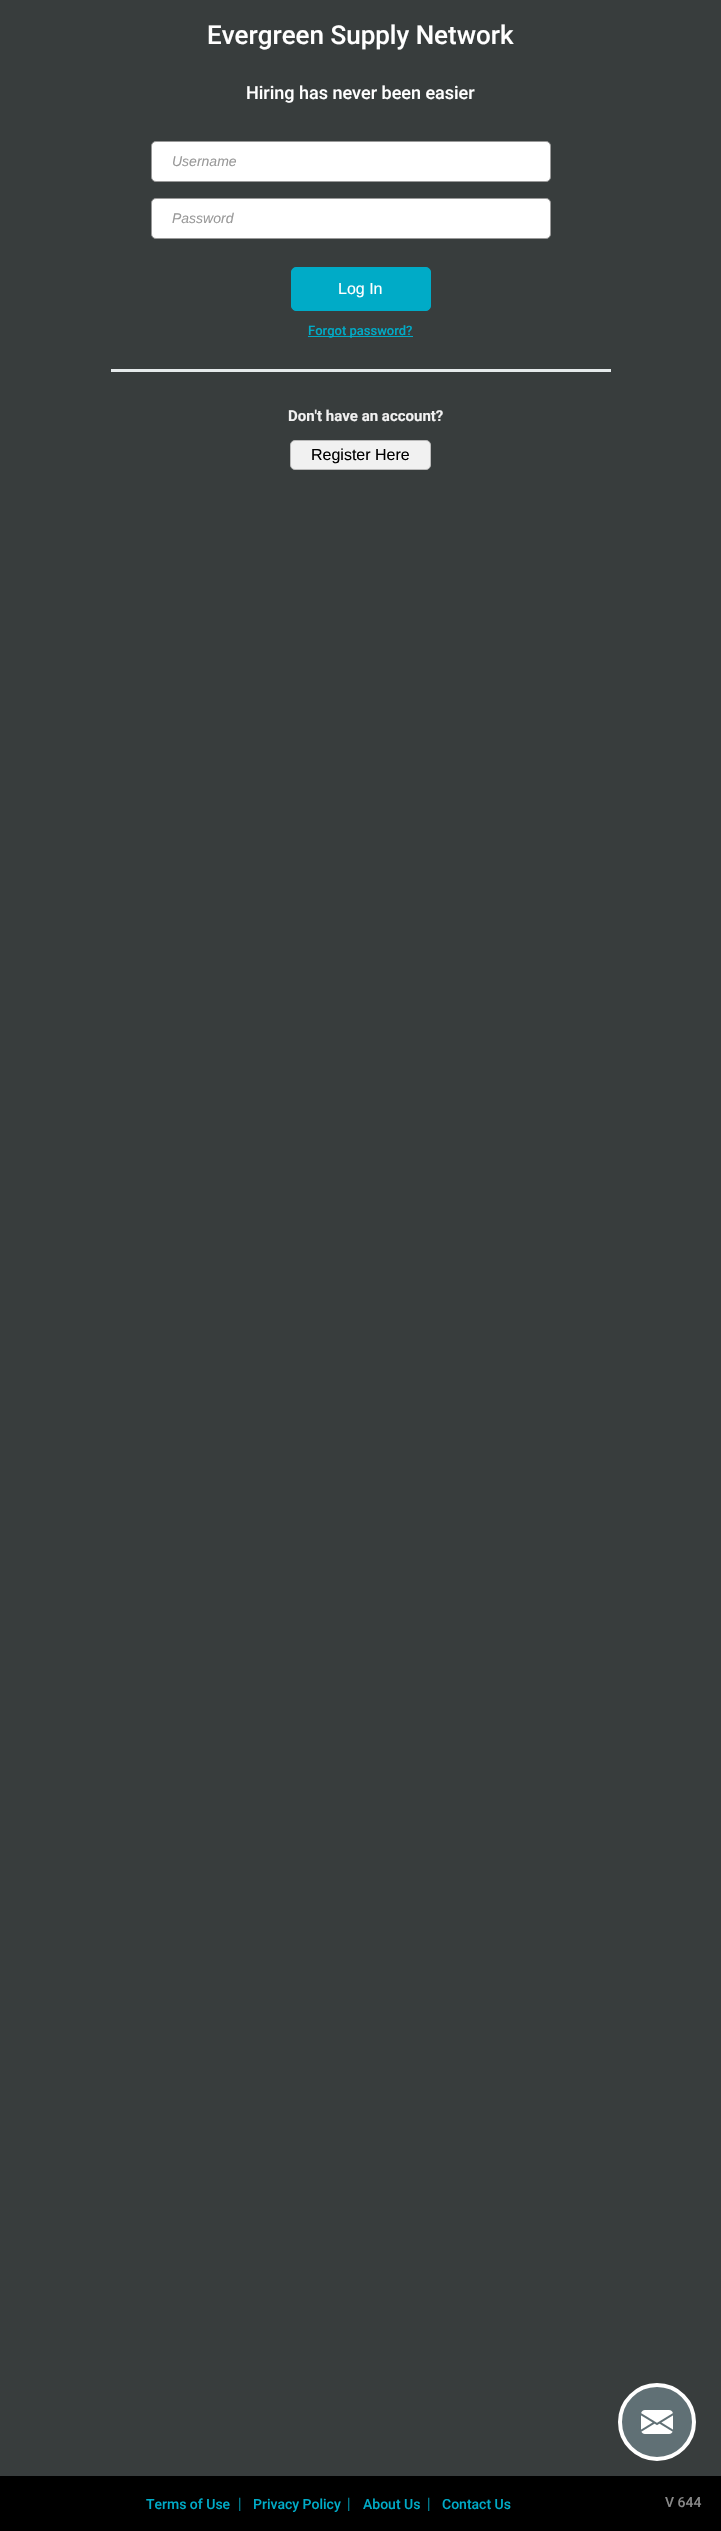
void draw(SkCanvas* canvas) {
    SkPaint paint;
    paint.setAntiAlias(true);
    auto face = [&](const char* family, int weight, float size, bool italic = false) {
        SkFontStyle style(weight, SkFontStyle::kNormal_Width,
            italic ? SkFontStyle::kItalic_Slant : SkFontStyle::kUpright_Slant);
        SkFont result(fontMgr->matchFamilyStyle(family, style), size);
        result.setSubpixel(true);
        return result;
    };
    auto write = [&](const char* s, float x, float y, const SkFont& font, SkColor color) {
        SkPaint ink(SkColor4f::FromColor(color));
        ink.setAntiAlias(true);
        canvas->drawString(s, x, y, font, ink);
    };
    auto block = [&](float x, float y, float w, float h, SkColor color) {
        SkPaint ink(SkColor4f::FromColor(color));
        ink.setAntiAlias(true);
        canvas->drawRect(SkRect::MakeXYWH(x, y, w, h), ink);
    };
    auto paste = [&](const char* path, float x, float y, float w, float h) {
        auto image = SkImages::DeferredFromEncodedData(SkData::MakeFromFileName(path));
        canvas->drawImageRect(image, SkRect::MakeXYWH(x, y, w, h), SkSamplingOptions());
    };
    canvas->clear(SkColorSetRGB(56, 61, 61));
    auto kFont1 = face("Roboto", 500, 26);
    write("Evergreen Supply Network", 207, 44, kFont1, SK_ColorWHITE);
    auto kFont2 = face("Roboto", 500, 18);
    write("Hiring has never been easier", 246, 99, kFont2, SK_ColorWHITE);
    paint.setColor(SK_ColorWHITE);
    canvas->drawRoundRect(SkRect::MakeXYWH(151.5f, 141.5f, 399, 40), 4.5f, 4.5f, paint);
    paint.setStyle(SkPaint::kStroke_Style);
    paint.setStrokeWidth(1);
    paint.setColor(SkColorSetRGB(153, 153, 153));
    canvas->drawRoundRect(SkRect::MakeXYWH(151.5f, 141.5f, 399, 40), 4.5f, 4.5f, paint);
    auto kFont3 = face("Liberation Sans", 400, 14, true);
    write("Username", 172, 166, kFont3, SkColorSetRGB(153, 153, 153));
    paint.setStyle(SkPaint::kFill_Style);
    paint.setColor(SK_ColorWHITE);
    canvas->drawRoundRect(SkRect::MakeXYWH(151.5f, 198.5f, 399, 40), 4.5f, 4.5f, paint);
    paint.setStyle(SkPaint::kStroke_Style);
    paint.setColor(SkColorSetRGB(153, 153, 153));
    canvas->drawRoundRect(SkRect::MakeXYWH(151.5f, 198.5f, 399, 40), 4.5f, 4.5f, paint);
    write("Password", 172, 223, kFont3, SkColorSetRGB(153, 153, 153));
    paint.setStyle(SkPaint::kFill_Style);
    paint.setColor(SkColorSetRGB(0, 171, 199));
    canvas->drawRoundRect(SkRect::MakeXYWH(291.5f, 267.5f, 139, 43), 4.5f, 4.5f, paint);
    paint.setStyle(SkPaint::kStroke_Style);
    canvas->drawRoundRect(SkRect::MakeXYWH(291.5f, 267.5f, 139, 43), 4.5f, 4.5f, paint);
    auto kFont4 = face("Liberation Sans", 400, 16);
    write("Log In", 338, 294, kFont4, SK_ColorWHITE);
    block(308, 336, 105, 1, SkColorSetRGB(0, 171, 199));
    auto kFont5 = face("Roboto", 500, 13);
    write("Forgot password?", 308, 335, kFont5, SkColorSetRGB(0, 171, 199));
    block(111, 369, 500, 3, SkColorSetRGB(229, 234, 235));
    auto kFont6 = face("Roboto", 700, 15);
    write("Don't have an account?", 288, 421, kFont6, SkColorSetRGB(241, 241, 241));
    paint.setStyle(SkPaint::kFill_Style);
    paint.setColor(SkColorSetRGB(241, 241, 241));
    canvas->drawRoundRect(SkRect::MakeXYWH(290.5f, 440.5f, 140, 29), 4.5f, 4.5f, paint);
    paint.setStyle(SkPaint::kStroke_Style);
    paint.setColor(SkColorSetRGB(186, 186, 186));
    canvas->drawRoundRect(SkRect::MakeXYWH(290.5f, 440.5f, 140, 29), 4.5f, 4.5f, paint);
    write("Register Here", 311, 460, kFont4, SK_ColorBLACK);
    block(0, 2476, 721, 55, SK_ColorBLACK);
    auto kFont7 = face("Roboto", 500, 14);
    write("Terms of Use", 146, 2509, kFont7, SkColorSetRGB(0, 171, 199));
    auto kFont8 = face("Roboto", 300, 16);
    write("|", 238, 2509, kFont8, SkColorSetRGB(0, 171, 199));
    write("Privacy Policy", 253, 2509, kFont7, SkColorSetRGB(0, 171, 199));
    write("|", 347, 2509, kFont8, SkColorSetRGB(0, 171, 199));
    write("About Us", 363, 2509, kFont7, SkColorSetRGB(0, 171, 199));
    write("|", 427, 2509, kFont8, SkColorSetRGB(0, 171, 199));
    write("Contact Us", 442, 2509, kFont7, SkColorSetRGB(0, 171, 199));
    write("V 644", 665, 2507, kFont7, SkColorSetRGB(136, 136, 136));
    paint.setStyle(SkPaint::kFill_Style);
    paint.setColor(SkColorSetRGB(96, 112, 117));
    canvas->drawCircle(657, 2422, 37, paint);
    paint.setStyle(SkPaint::kStroke_Style);
    paint.setStrokeWidth(4);
    paint.setColor(SK_ColorWHITE);
    canvas->drawCircle(657, 2422, 37, paint);
    paste("pic1.png", 641, 2410, 32, 24);
}
